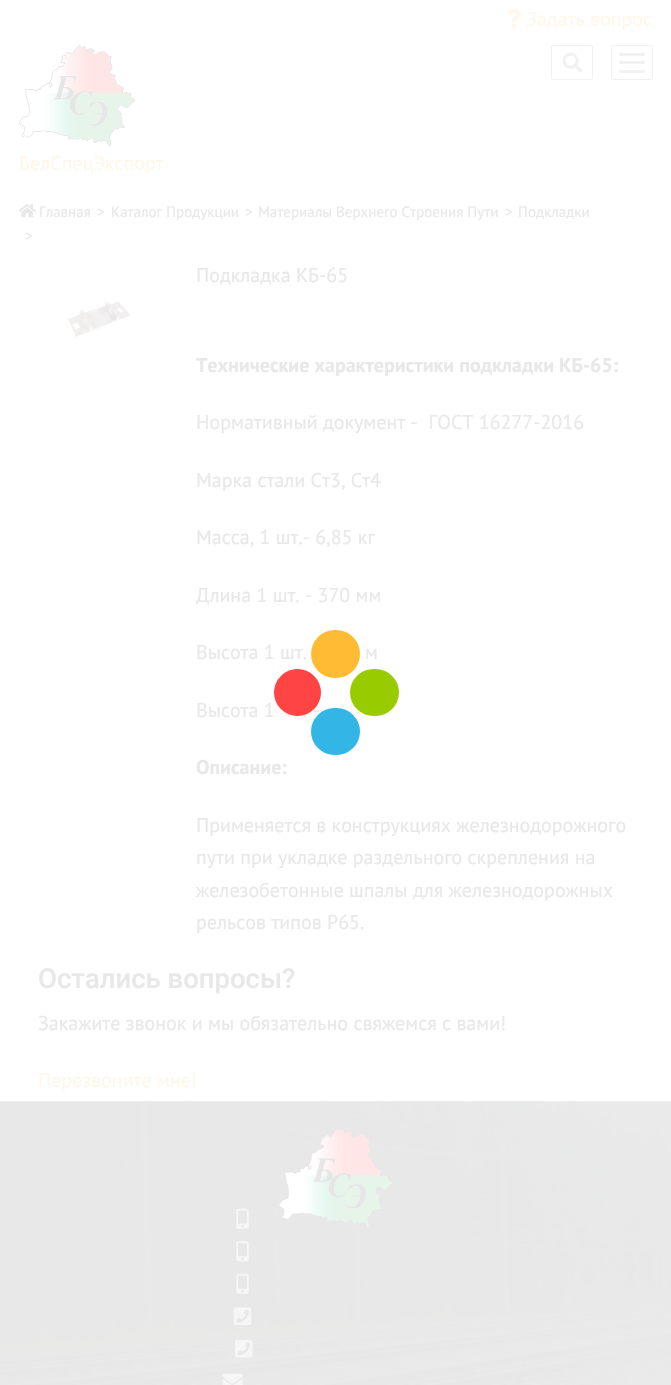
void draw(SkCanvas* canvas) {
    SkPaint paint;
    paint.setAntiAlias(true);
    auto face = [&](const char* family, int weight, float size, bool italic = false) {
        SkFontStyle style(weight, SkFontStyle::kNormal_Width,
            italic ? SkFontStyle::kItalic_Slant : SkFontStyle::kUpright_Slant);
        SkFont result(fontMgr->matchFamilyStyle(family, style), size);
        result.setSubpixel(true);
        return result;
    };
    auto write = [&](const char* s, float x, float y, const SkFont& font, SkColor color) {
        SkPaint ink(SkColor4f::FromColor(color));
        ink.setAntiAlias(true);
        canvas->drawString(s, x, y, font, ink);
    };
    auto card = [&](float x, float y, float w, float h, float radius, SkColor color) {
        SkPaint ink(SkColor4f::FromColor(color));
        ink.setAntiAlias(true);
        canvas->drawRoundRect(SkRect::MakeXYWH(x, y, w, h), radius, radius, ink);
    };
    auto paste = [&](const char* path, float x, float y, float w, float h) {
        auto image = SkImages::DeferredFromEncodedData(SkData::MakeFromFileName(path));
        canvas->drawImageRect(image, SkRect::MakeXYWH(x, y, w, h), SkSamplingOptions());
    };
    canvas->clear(SK_ColorWHITE);
    paste("pic1.png", 507, 8, 14, 21);
    auto kFont1 = face("PT Sans", 400, 20);
    write("Задать вопрос", 526, 26, kFont1, SkColorSetRGB(255, 247, 235));
    paint.setStyle(SkPaint::kStroke_Style);
    paint.setStrokeWidth(1);
    paint.setColor(SkColorSetRGB(241, 241, 241));
    canvas->drawRoundRect(SkRect::MakeXYWH(551.5f, 45.5f, 41, 34), 2, 2, paint);
    paste("pic2.png", 562, 52, 21, 21);
    canvas->drawRoundRect(SkRect::MakeXYWH(611.5f, 45.5f, 41, 34), 2, 2, paint);
    card(619, 53, 26, 3, 1.5f, SkColorSetRGB(241, 241, 241));
    card(619, 61, 26, 3, 1.5f, SkColorSetRGB(241, 241, 241));
    card(619, 70, 26, 3, 1.5f, SkColorSetRGB(241, 241, 241));
    paste("pic3.png", 18, 45, 117, 102);
    write("БелСпецЭкспорт", 19, 170, kFont1, SkColorSetRGB(255, 247, 235));
    paste("pic4.png", 18, 204, 18, 14);
    auto kFont2 = face("PT Sans", 400, 15);
    write("Главная", 39, 217, kFont2, SkColorSetRGB(232, 232, 232));
    write(">", 97, 217, kFont2, SkColorSetRGB(232, 232, 232));
    write("Каталог Продукции", 111, 217, kFont2, SkColorSetRGB(232, 232, 232));
    write(">", 245, 217, kFont2, SkColorSetRGB(232, 232, 232));
    write("Материалы Верхнего Строения Пути", 258, 217, kFont2, SkColorSetRGB(232, 232, 232));
    write(">", 505, 217, kFont2, SkColorSetRGB(232, 232, 232));
    write("Подкладки", 518, 217, kFont2, SkColorSetRGB(232, 232, 232));
    write(">", 25, 241, kFont2, SkColorSetRGB(232, 232, 232));
    paste("pic5.png", 67, 301, 64, 37);
    write("Подкладка КБ-65", 196, 282, kFont1, SkColorSetRGB(232, 232, 232));
    auto kFont3 = face("PT Sans", 700, 20);
    write("Технические характеристики подкладки КБ-65:", 196, 372, kFont3, SkColorSetRGB(232, 232, 232));
    write("Нормативный документ -  ГОСТ 16277-2016", 196, 429, kFont1, SkColorSetRGB(232, 232, 232));
    write("Марка стали Ст3, Ст4", 196, 487, kFont1, SkColorSetRGB(232, 232, 232));
    write("Масса, 1 шт.- 6,85 кг", 196, 544, kFont1, SkColorSetRGB(232, 232, 232));
    write("Длина 1 шт. - 370 мм", 196, 602, kFont1, SkColorSetRGB(232, 232, 232));
    write("Высота 1 шт.", 196, 659, kFont1, SkColorSetRGB(232, 232, 232));
    write("м", 365, 659, kFont1, SkColorSetRGB(232, 232, 232));
    write("Высота 1", 196, 717, kFont1, SkColorSetRGB(232, 232, 232));
    write(". -", 303, 717, kFont1, SkColorSetRGB(232, 232, 232));
    write("Описание:", 196, 774, kFont3, SkColorSetRGB(232, 232, 232));
    write("Применяется в конструкциях железнодорожного", 196, 832, kFont1, SkColorSetRGB(232, 232, 232));
    write("пути при укладке раздельного скрепления на", 196, 864, kFont1, SkColorSetRGB(232, 232, 232));
    write("железобетонные шпалы для железнодорожных", 196, 897, kFont1, SkColorSetRGB(232, 232, 232));
    write("рельсов типов Р65.", 196, 929, kFont1, SkColorSetRGB(232, 232, 232));
    auto kFont4 = face("Roboto", 500, 27.5f);
    write("Остались вопросы?", 38, 988, kFont4, SkColorSetRGB(232, 232, 232));
    write("Закажите звонок и мы обязательно свяжемся с вами!", 38, 1030, kFont1, SkColorSetRGB(232, 232, 232));
    write("Перезвоните мне!", 38, 1087, kFont1, SkColorSetRGB(255, 247, 235));
    paste("pic6.png", 0, 1101, 671, 284);
    paste("pic7.png", 278, 1127, 115, 102);
    paste("pic8.png", 236, 1208, 13, 21);
    paste("pic9.png", 236, 1241, 13, 21);
    paste("pic10.png", 236, 1273, 13, 21);
    paste("pic11.png", 233, 1307, 19, 18);
    paste("pic12.png", 235, 1340, 18, 18);
    paste("pic13.png", 222, 1373, 21, 12);
    paint.setStyle(SkPaint::kFill_Style);
    paint.setColor(SkColorSetRGB(255, 68, 68));
    canvas->drawCircle(297.5f, 692.5f, 23.5f, paint);
    card(311, 630, 49, 48, 24, SkColorSetRGB(255, 187, 51));
    card(350, 669, 49, 47, 23.5f, SkColorSetRGB(153, 204, 0));
    card(311, 708, 49, 47, 23.5f, SkColorSetRGB(51, 181, 229));
}
